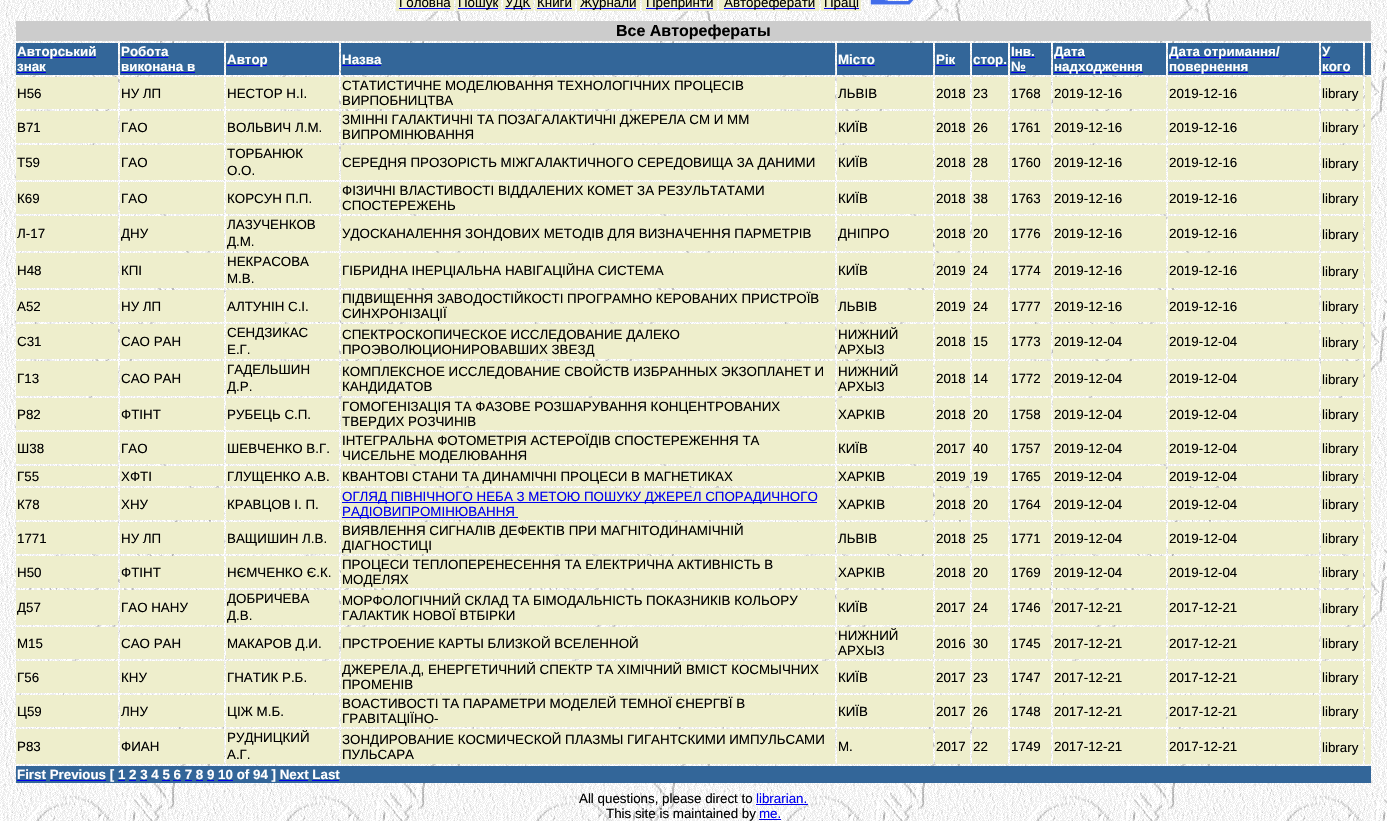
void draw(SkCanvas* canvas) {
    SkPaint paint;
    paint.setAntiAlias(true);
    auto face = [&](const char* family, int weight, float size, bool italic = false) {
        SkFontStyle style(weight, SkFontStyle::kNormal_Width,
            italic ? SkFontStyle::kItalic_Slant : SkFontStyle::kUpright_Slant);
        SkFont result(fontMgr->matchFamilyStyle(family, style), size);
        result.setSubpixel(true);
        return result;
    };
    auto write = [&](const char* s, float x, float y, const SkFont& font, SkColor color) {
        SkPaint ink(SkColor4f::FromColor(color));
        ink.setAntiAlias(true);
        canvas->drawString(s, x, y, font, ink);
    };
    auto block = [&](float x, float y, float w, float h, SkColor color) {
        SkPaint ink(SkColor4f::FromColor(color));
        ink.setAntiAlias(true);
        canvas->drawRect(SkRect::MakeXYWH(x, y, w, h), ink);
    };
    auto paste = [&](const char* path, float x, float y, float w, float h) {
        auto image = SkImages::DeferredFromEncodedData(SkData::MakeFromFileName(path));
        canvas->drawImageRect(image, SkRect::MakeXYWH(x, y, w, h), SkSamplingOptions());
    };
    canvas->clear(SK_ColorWHITE);
    paste("pic1.png", 0, 0, 1387, 821);
    block(396, 0, 58, 11, SkColorSetRGB(238, 238, 204));
    auto kFont1 = face("Liberation Sans", 400, 13.35f);
    write("Головна", 399, 7, kFont1, SK_ColorBLACK);
    block(399, 8, 51, 1, SkColorSetRGB(0, 0, 238));
    block(456, 0, 45, 11, SkColorSetRGB(238, 238, 204));
    block(458, 8, 40, 1, SkColorSetRGB(0, 0, 238));
    write("Пошук", 458, 7, kFont1, SK_ColorBLACK);
    block(503, 0, 30, 11, SkColorSetRGB(238, 238, 204));
    block(505, 8, 26, 1, SkColorSetRGB(0, 0, 238));
    write("УДК", 505, 7, kFont1, SK_ColorBLACK);
    block(535, 0, 40, 11, SkColorSetRGB(238, 238, 204));
    write("Книги", 537, 7, kFont1, SK_ColorBLACK);
    block(537, 8, 35, 1, SkColorSetRGB(0, 0, 238));
    block(577, 0, 63, 11, SkColorSetRGB(238, 238, 204));
    block(580, 8, 56, 1, SkColorSetRGB(0, 0, 238));
    write("Журнали", 580, 7, kFont1, SK_ColorBLACK);
    block(642, 0, 75, 11, SkColorSetRGB(238, 238, 204));
    block(646, 8, 67, 1, SkColorSetRGB(0, 0, 238));
    write("Препринти", 646, 7, kFont1, SK_ColorBLACK);
    block(719, 0, 100, 11, SkColorSetRGB(238, 238, 204));
    block(724, 8, 91, 1, SkColorSetRGB(0, 0, 238));
    write("Автореферати", 724, 7, kFont1, SK_ColorBLACK);
    block(821, 0, 40, 11, SkColorSetRGB(238, 238, 204));
    block(824, 8, 35, 1, SkColorSetRGB(0, 0, 238));
    write("Праці", 824, 7, kFont1, SK_ColorBLACK);
    paste("pic2.png", 870, 0, 44, 5);
    block(16, 21, 1355, 20, SkColorSetRGB(204, 204, 204));
    auto kFont2 = face("Liberation Sans", 700, 16);
    write("Все Авторефераты", 616, 36, kFont2, SK_ColorBLACK);
    block(16, 43, 102, 32, SkColorSetRGB(51, 102, 153));
    block(17, 57, 79, 1, SkColorSetRGB(0, 0, 238));
    auto kFont3 = face("Liberation Sans", 700, 13.35f);
    write("Авторський", 17, 56, kFont3, SK_ColorWHITE);
    write("знак", 17, 71, kFont3, SK_ColorWHITE);
    block(17, 72, 29, 1, SkColorSetRGB(0, 0, 238));
    block(120, 43, 104, 32, SkColorSetRGB(51, 102, 153));
    write("Робота", 121, 56, kFont3, SK_ColorWHITE);
    block(121, 57, 47, 1, SkColorSetRGB(0, 0, 238));
    write("виконана в", 121, 71, kFont3, SK_ColorWHITE);
    block(121, 72, 74, 1, SkColorSetRGB(0, 0, 238));
    block(226, 43, 113, 32, SkColorSetRGB(51, 102, 153));
    block(227, 65, 40, 1, SkColorSetRGB(0, 0, 238));
    write("Автор", 227, 64, kFont3, SK_ColorWHITE);
    block(341, 43, 494, 32, SkColorSetRGB(51, 102, 153));
    write("Назва", 342, 64, kFont3, SK_ColorWHITE);
    block(342, 65, 39, 1, SkColorSetRGB(0, 0, 238));
    block(837, 43, 96, 32, SkColorSetRGB(51, 102, 153));
    write("Місто", 838, 64, kFont3, SK_ColorWHITE);
    block(838, 65, 37, 1, SkColorSetRGB(0, 0, 238));
    block(935, 43, 35, 32, SkColorSetRGB(51, 102, 153));
    write("Рік", 936, 64, kFont3, SK_ColorWHITE);
    block(936, 65, 19, 1, SkColorSetRGB(0, 0, 238));
    block(972, 43, 36, 32, SkColorSetRGB(51, 102, 153));
    block(973, 65, 34, 1, SkColorSetRGB(0, 0, 238));
    write("стор.", 973, 64, kFont3, SK_ColorWHITE);
    block(1010, 43, 41, 32, SkColorSetRGB(51, 102, 153));
    write("Інв.", 1011, 56, kFont3, SK_ColorWHITE);
    block(1011, 57, 24, 1, SkColorSetRGB(0, 0, 238));
    write("№", 1011, 71, kFont3, SK_ColorWHITE);
    block(1011, 72, 15, 1, SkColorSetRGB(0, 0, 238));
    block(1053, 43, 113, 32, SkColorSetRGB(51, 102, 153));
    block(1054, 57, 31, 1, SkColorSetRGB(0, 0, 238));
    write("Дата", 1054, 56, kFont3, SK_ColorWHITE);
    block(1054, 72, 89, 1, SkColorSetRGB(0, 0, 238));
    write("надходження", 1054, 71, kFont3, SK_ColorWHITE);
    block(1168, 43, 151, 32, SkColorSetRGB(51, 102, 153));
    block(1169, 57, 110, 1, SkColorSetRGB(0, 0, 238));
    write("Дата отримання/", 1169, 56, kFont3, SK_ColorWHITE);
    block(1169, 72, 79, 1, SkColorSetRGB(0, 0, 238));
    write("повернення", 1169, 71, kFont3, SK_ColorWHITE);
    block(1321, 43, 42, 32, SkColorSetRGB(51, 102, 153));
    write("У", 1322, 56, kFont3, SK_ColorWHITE);
    block(1322, 57, 8, 1, SkColorSetRGB(0, 0, 238));
    write("кого", 1322, 71, kFont3, SK_ColorWHITE);
    block(1322, 72, 28, 1, SkColorSetRGB(0, 0, 238));
    block(1365, 43, 6, 32, SkColorSetRGB(51, 102, 153));
    block(16, 77, 102, 32, SkColorSetRGB(238, 238, 204));
    write("Н56", 17, 98, kFont1, SK_ColorBLACK);
    block(120, 77, 104, 32, SkColorSetRGB(238, 238, 204));
    write("НУ ЛП", 121, 98, kFont1, SK_ColorBLACK);
    block(226, 77, 113, 32, SkColorSetRGB(238, 238, 204));
    write("НЕСТОР Н.І.", 227, 98, kFont1, SK_ColorBLACK);
    block(341, 77, 494, 32, SkColorSetRGB(238, 238, 204));
    write("СТАТИСТИЧНЕ МОДЕЛЮВАННЯ ТЕХНОЛОГІЧНИХ ПРОЦЕСІВ", 342, 90, kFont1, SK_ColorBLACK);
    write("ВИРПОБНИЦТВА", 342, 105, kFont1, SK_ColorBLACK);
    block(837, 77, 96, 32, SkColorSetRGB(238, 238, 204));
    write("ЛЬВІВ", 838, 98, kFont1, SK_ColorBLACK);
    block(935, 77, 35, 32, SkColorSetRGB(238, 238, 204));
    write("2018", 936, 98, kFont1, SK_ColorBLACK);
    block(972, 77, 36, 32, SkColorSetRGB(238, 238, 204));
    write("23", 973, 98, kFont1, SK_ColorBLACK);
    block(1010, 77, 41, 32, SkColorSetRGB(238, 238, 204));
    write("1768", 1011, 98, kFont1, SK_ColorBLACK);
    block(1053, 77, 113, 32, SkColorSetRGB(238, 238, 204));
    write("2019-12-16", 1054, 98, kFont1, SK_ColorBLACK);
    block(1168, 77, 151, 32, SkColorSetRGB(238, 238, 204));
    write("2019-12-16", 1169, 98, kFont1, SK_ColorBLACK);
    block(1321, 77, 42, 32, SkColorSetRGB(238, 238, 204));
    write("library", 1322, 98, kFont1, SK_ColorBLACK);
    block(1365, 77, 6, 32, SkColorSetRGB(238, 238, 204));
    block(16, 111, 102, 32, SkColorSetRGB(238, 238, 204));
    write("В71", 17, 132, kFont1, SK_ColorBLACK);
    block(120, 111, 104, 32, SkColorSetRGB(238, 238, 204));
    write("ГАО", 121, 132, kFont1, SK_ColorBLACK);
    block(226, 111, 113, 32, SkColorSetRGB(238, 238, 204));
    write("ВОЛЬВИЧ Л.М.", 227, 132, kFont1, SK_ColorBLACK);
    block(341, 111, 494, 32, SkColorSetRGB(238, 238, 204));
    write("ЗМІННІ ГАЛАКТИЧНІ ТА ПОЗАГАЛАКТИЧНІ ДЖЕРЕЛА СМ И ММ", 342, 124, kFont1, SK_ColorBLACK);
    write("ВИПРОМІНЮВАННЯ", 342, 139, kFont1, SK_ColorBLACK);
    block(837, 111, 96, 32, SkColorSetRGB(238, 238, 204));
    write("КИЇВ", 838, 132, kFont1, SK_ColorBLACK);
    block(935, 111, 35, 32, SkColorSetRGB(238, 238, 204));
    write("2018", 936, 132, kFont1, SK_ColorBLACK);
    block(972, 111, 36, 32, SkColorSetRGB(238, 238, 204));
    write("26", 973, 132, kFont1, SK_ColorBLACK);
    block(1010, 111, 41, 32, SkColorSetRGB(238, 238, 204));
    write("1761", 1011, 132, kFont1, SK_ColorBLACK);
    block(1053, 111, 113, 32, SkColorSetRGB(238, 238, 204));
    write("2019-12-16", 1054, 132, kFont1, SK_ColorBLACK);
    block(1168, 111, 151, 32, SkColorSetRGB(238, 238, 204));
    write("2019-12-16", 1169, 132, kFont1, SK_ColorBLACK);
    block(1321, 111, 42, 32, SkColorSetRGB(238, 238, 204));
    write("library", 1322, 132, kFont1, SK_ColorBLACK);
    block(1365, 111, 6, 32, SkColorSetRGB(238, 238, 204));
    block(16, 145, 102, 35, SkColorSetRGB(238, 238, 204));
    write("Т59", 17, 167, kFont1, SK_ColorBLACK);
    block(120, 145, 104, 35, SkColorSetRGB(238, 238, 204));
    write("ГАО", 121, 167, kFont1, SK_ColorBLACK);
    block(226, 145, 113, 35, SkColorSetRGB(238, 238, 204));
    write("ТОРБАНЮК", 227, 158, kFont1, SK_ColorBLACK);
    write("О.О.", 227, 175, kFont1, SK_ColorBLACK);
    block(341, 145, 494, 35, SkColorSetRGB(238, 238, 204));
    write("СЕРЕДНЯ ПРОЗОРІСТЬ МІЖГАЛАКТИЧНОГО СЕРЕДОВИЩА ЗА ДАНИМИ", 342, 167, kFont1, SK_ColorBLACK);
    block(837, 145, 96, 35, SkColorSetRGB(238, 238, 204));
    write("КИЇВ", 838, 167, kFont1, SK_ColorBLACK);
    block(935, 145, 35, 35, SkColorSetRGB(238, 238, 204));
    write("2018", 936, 167, kFont1, SK_ColorBLACK);
    block(972, 145, 36, 35, SkColorSetRGB(238, 238, 204));
    write("28", 973, 167, kFont1, SK_ColorBLACK);
    block(1010, 145, 41, 35, SkColorSetRGB(238, 238, 204));
    write("1760", 1011, 167, kFont1, SK_ColorBLACK);
    block(1053, 145, 113, 35, SkColorSetRGB(238, 238, 204));
    write("2019-12-16", 1054, 167, kFont1, SK_ColorBLACK);
    block(1168, 145, 151, 35, SkColorSetRGB(238, 238, 204));
    write("2019-12-16", 1169, 167, kFont1, SK_ColorBLACK);
    block(1321, 145, 42, 35, SkColorSetRGB(238, 238, 204));
    write("library", 1322, 168, kFont1, SK_ColorBLACK);
    block(1365, 145, 6, 35, SkColorSetRGB(238, 238, 204));
    block(16, 182, 102, 32, SkColorSetRGB(238, 238, 204));
    write("К69", 17, 203, kFont1, SK_ColorBLACK);
    block(120, 182, 104, 32, SkColorSetRGB(238, 238, 204));
    write("ГАО", 121, 203, kFont1, SK_ColorBLACK);
    block(226, 182, 113, 32, SkColorSetRGB(238, 238, 204));
    write("КОРСУН П.П.", 227, 203, kFont1, SK_ColorBLACK);
    block(341, 182, 494, 32, SkColorSetRGB(238, 238, 204));
    write("ФІЗИЧНІ ВЛАСТИВОСТІ ВІДДАЛЕНИХ КОМЕТ ЗА РЕЗУЛЬТАТАМИ", 342, 195, kFont1, SK_ColorBLACK);
    write("СПОСТЕРЕЖЕНЬ", 342, 210, kFont1, SK_ColorBLACK);
    block(837, 182, 96, 32, SkColorSetRGB(238, 238, 204));
    write("КИЇВ", 838, 203, kFont1, SK_ColorBLACK);
    block(935, 182, 35, 32, SkColorSetRGB(238, 238, 204));
    write("2018", 936, 203, kFont1, SK_ColorBLACK);
    block(972, 182, 36, 32, SkColorSetRGB(238, 238, 204));
    write("38", 973, 203, kFont1, SK_ColorBLACK);
    block(1010, 182, 41, 32, SkColorSetRGB(238, 238, 204));
    write("1763", 1011, 203, kFont1, SK_ColorBLACK);
    block(1053, 182, 113, 32, SkColorSetRGB(238, 238, 204));
    write("2019-12-16", 1054, 203, kFont1, SK_ColorBLACK);
    block(1168, 182, 151, 32, SkColorSetRGB(238, 238, 204));
    write("2019-12-16", 1169, 203, kFont1, SK_ColorBLACK);
    block(1321, 182, 42, 32, SkColorSetRGB(238, 238, 204));
    write("library", 1322, 203, kFont1, SK_ColorBLACK);
    block(1365, 182, 6, 32, SkColorSetRGB(238, 238, 204));
    block(16, 216, 102, 35, SkColorSetRGB(238, 238, 204));
    write("Л-17", 17, 238, kFont1, SK_ColorBLACK);
    block(120, 216, 104, 35, SkColorSetRGB(238, 238, 204));
    write("ДНУ", 121, 238, kFont1, SK_ColorBLACK);
    block(226, 216, 113, 35, SkColorSetRGB(238, 238, 204));
    write("ЛАЗУЧЕНКОВ", 227, 229, kFont1, SK_ColorBLACK);
    write("Д.М.", 227, 246, kFont1, SK_ColorBLACK);
    block(341, 216, 494, 35, SkColorSetRGB(238, 238, 204));
    write("УДОСКАНАЛЕННЯ ЗОНДОВИХ МЕТОДІВ ДЛЯ ВИЗНАЧЕННЯ ПАРМЕТРІВ", 342, 238, kFont1, SK_ColorBLACK);
    block(837, 216, 96, 35, SkColorSetRGB(238, 238, 204));
    write("ДНІПРО", 838, 238, kFont1, SK_ColorBLACK);
    block(935, 216, 35, 35, SkColorSetRGB(238, 238, 204));
    write("2018", 936, 238, kFont1, SK_ColorBLACK);
    block(972, 216, 36, 35, SkColorSetRGB(238, 238, 204));
    write("20", 973, 238, kFont1, SK_ColorBLACK);
    block(1010, 216, 41, 35, SkColorSetRGB(238, 238, 204));
    write("1776", 1011, 238, kFont1, SK_ColorBLACK);
    block(1053, 216, 113, 35, SkColorSetRGB(238, 238, 204));
    write("2019-12-16", 1054, 238, kFont1, SK_ColorBLACK);
    block(1168, 216, 151, 35, SkColorSetRGB(238, 238, 204));
    write("2019-12-16", 1169, 238, kFont1, SK_ColorBLACK);
    block(1321, 216, 42, 35, SkColorSetRGB(238, 238, 204));
    write("library", 1322, 239, kFont1, SK_ColorBLACK);
    block(1365, 216, 6, 35, SkColorSetRGB(238, 238, 204));
    block(16, 253, 102, 35, SkColorSetRGB(238, 238, 204));
    write("Н48", 17, 275, kFont1, SK_ColorBLACK);
    block(120, 253, 104, 35, SkColorSetRGB(238, 238, 204));
    write("КПІ", 121, 275, kFont1, SK_ColorBLACK);
    block(226, 253, 113, 35, SkColorSetRGB(238, 238, 204));
    write("НЕКРАСОВА", 227, 266, kFont1, SK_ColorBLACK);
    write("М.В.", 227, 283, kFont1, SK_ColorBLACK);
    block(341, 253, 494, 35, SkColorSetRGB(238, 238, 204));
    write("ГІБРИДНА ІНЕРЦІАЛЬНА НАВІГАЦІЙНА СИСТЕМА", 342, 275, kFont1, SK_ColorBLACK);
    block(837, 253, 96, 35, SkColorSetRGB(238, 238, 204));
    write("КИЇВ", 838, 275, kFont1, SK_ColorBLACK);
    block(935, 253, 35, 35, SkColorSetRGB(238, 238, 204));
    write("2019", 936, 275, kFont1, SK_ColorBLACK);
    block(972, 253, 36, 35, SkColorSetRGB(238, 238, 204));
    write("24", 973, 275, kFont1, SK_ColorBLACK);
    block(1010, 253, 41, 35, SkColorSetRGB(238, 238, 204));
    write("1774", 1011, 275, kFont1, SK_ColorBLACK);
    block(1053, 253, 113, 35, SkColorSetRGB(238, 238, 204));
    write("2019-12-16", 1054, 275, kFont1, SK_ColorBLACK);
    block(1168, 253, 151, 35, SkColorSetRGB(238, 238, 204));
    write("2019-12-16", 1169, 275, kFont1, SK_ColorBLACK);
    block(1321, 253, 42, 35, SkColorSetRGB(238, 238, 204));
    write("library", 1322, 276, kFont1, SK_ColorBLACK);
    block(1365, 253, 6, 35, SkColorSetRGB(238, 238, 204));
    block(16, 290, 102, 32, SkColorSetRGB(238, 238, 204));
    write("А52", 17, 311, kFont1, SK_ColorBLACK);
    block(120, 290, 104, 32, SkColorSetRGB(238, 238, 204));
    write("НУ ЛП", 121, 311, kFont1, SK_ColorBLACK);
    block(226, 290, 113, 32, SkColorSetRGB(238, 238, 204));
    write("АЛТУНІН С.І.", 227, 311, kFont1, SK_ColorBLACK);
    block(341, 290, 494, 32, SkColorSetRGB(238, 238, 204));
    write("ПІДВИЩЕННЯ ЗАВОДОСТІЙКОСТІ ПРОГРАМНО КЕРОВАНИХ ПРИСТРОЇВ", 342, 303, kFont1, SK_ColorBLACK);
    write("СИНХРОНІЗАЦІЇ", 342, 318, kFont1, SK_ColorBLACK);
    block(837, 290, 96, 32, SkColorSetRGB(238, 238, 204));
    write("ЛЬВІВ", 838, 311, kFont1, SK_ColorBLACK);
    block(935, 290, 35, 32, SkColorSetRGB(238, 238, 204));
    write("2019", 936, 311, kFont1, SK_ColorBLACK);
    block(972, 290, 36, 32, SkColorSetRGB(238, 238, 204));
    write("24", 973, 311, kFont1, SK_ColorBLACK);
    block(1010, 290, 41, 32, SkColorSetRGB(238, 238, 204));
    write("1777", 1011, 311, kFont1, SK_ColorBLACK);
    block(1053, 290, 113, 32, SkColorSetRGB(238, 238, 204));
    write("2019-12-16", 1054, 311, kFont1, SK_ColorBLACK);
    block(1168, 290, 151, 32, SkColorSetRGB(238, 238, 204));
    write("2019-12-16", 1169, 311, kFont1, SK_ColorBLACK);
    block(1321, 290, 42, 32, SkColorSetRGB(238, 238, 204));
    write("library", 1322, 311, kFont1, SK_ColorBLACK);
    block(1365, 290, 6, 32, SkColorSetRGB(238, 238, 204));
    block(16, 324, 102, 35, SkColorSetRGB(238, 238, 204));
    write("С31", 17, 346, kFont1, SK_ColorBLACK);
    block(120, 324, 104, 35, SkColorSetRGB(238, 238, 204));
    write("САО РАН", 121, 346, kFont1, SK_ColorBLACK);
    block(226, 324, 113, 35, SkColorSetRGB(238, 238, 204));
    write("СЕНДЗИКАС", 227, 337, kFont1, SK_ColorBLACK);
    write("Е.Г.", 227, 354, kFont1, SK_ColorBLACK);
    block(341, 324, 494, 35, SkColorSetRGB(238, 238, 204));
    write("СПЕКТРОСКОПИЧЕСКОЕ ИССЛЕДОВАНИЕ ДАЛЕКО", 342, 339, kFont1, SK_ColorBLACK);
    write("ПРОЭВОЛЮЦИОНИРОВАВШИХ ЗВЕЗД", 342, 354, kFont1, SK_ColorBLACK);
    block(837, 324, 96, 35, SkColorSetRGB(238, 238, 204));
    write("НИЖНИЙ", 838, 339, kFont1, SK_ColorBLACK);
    write("АРХЫЗ", 838, 354, kFont1, SK_ColorBLACK);
    block(935, 324, 35, 35, SkColorSetRGB(238, 238, 204));
    write("2018", 936, 346, kFont1, SK_ColorBLACK);
    block(972, 324, 36, 35, SkColorSetRGB(238, 238, 204));
    write("15", 973, 346, kFont1, SK_ColorBLACK);
    block(1010, 324, 41, 35, SkColorSetRGB(238, 238, 204));
    write("1773", 1011, 346, kFont1, SK_ColorBLACK);
    block(1053, 324, 113, 35, SkColorSetRGB(238, 238, 204));
    write("2019-12-04", 1054, 346, kFont1, SK_ColorBLACK);
    block(1168, 324, 151, 35, SkColorSetRGB(238, 238, 204));
    write("2019-12-04", 1169, 346, kFont1, SK_ColorBLACK);
    block(1321, 324, 42, 35, SkColorSetRGB(238, 238, 204));
    write("library", 1322, 347, kFont1, SK_ColorBLACK);
    block(1365, 324, 6, 35, SkColorSetRGB(238, 238, 204));
    block(16, 361, 102, 35, SkColorSetRGB(238, 238, 204));
    write("Г13", 17, 383, kFont1, SK_ColorBLACK);
    block(120, 361, 104, 35, SkColorSetRGB(238, 238, 204));
    write("САО РАН", 121, 383, kFont1, SK_ColorBLACK);
    block(226, 361, 113, 35, SkColorSetRGB(238, 238, 204));
    write("ГАДЕЛЬШИН", 227, 374, kFont1, SK_ColorBLACK);
    write("Д.Р.", 227, 391, kFont1, SK_ColorBLACK);
    block(341, 361, 494, 35, SkColorSetRGB(238, 238, 204));
    write("КОМПЛЕКСНОЕ ИССЛЕДОВАНИЕ СВОЙСТВ ИЗБРАННЫХ ЭКЗОПЛАНЕТ И", 342, 376, kFont1, SK_ColorBLACK);
    write("КАНДИДАТОВ", 342, 391, kFont1, SK_ColorBLACK);
    block(837, 361, 96, 35, SkColorSetRGB(238, 238, 204));
    write("НИЖНИЙ", 838, 376, kFont1, SK_ColorBLACK);
    write("АРХЫЗ", 838, 391, kFont1, SK_ColorBLACK);
    block(935, 361, 35, 35, SkColorSetRGB(238, 238, 204));
    write("2018", 936, 383, kFont1, SK_ColorBLACK);
    block(972, 361, 36, 35, SkColorSetRGB(238, 238, 204));
    write("14", 973, 383, kFont1, SK_ColorBLACK);
    block(1010, 361, 41, 35, SkColorSetRGB(238, 238, 204));
    write("1772", 1011, 383, kFont1, SK_ColorBLACK);
    block(1053, 361, 113, 35, SkColorSetRGB(238, 238, 204));
    write("2019-12-04", 1054, 383, kFont1, SK_ColorBLACK);
    block(1168, 361, 151, 35, SkColorSetRGB(238, 238, 204));
    write("2019-12-04", 1169, 383, kFont1, SK_ColorBLACK);
    block(1321, 361, 42, 35, SkColorSetRGB(238, 238, 204));
    write("library", 1322, 384, kFont1, SK_ColorBLACK);
    block(1365, 361, 6, 35, SkColorSetRGB(238, 238, 204));
    block(16, 398, 102, 32, SkColorSetRGB(238, 238, 204));
    write("Р82", 17, 419, kFont1, SK_ColorBLACK);
    block(120, 398, 104, 32, SkColorSetRGB(238, 238, 204));
    write("ФТІНТ", 121, 419, kFont1, SK_ColorBLACK);
    block(226, 398, 113, 32, SkColorSetRGB(238, 238, 204));
    write("РУБЕЦЬ С.П.", 227, 419, kFont1, SK_ColorBLACK);
    block(341, 398, 494, 32, SkColorSetRGB(238, 238, 204));
    write("ГОМОГЕНІЗАЦІЯ ТА ФАЗОВЕ РОЗШАРУВАННЯ КОНЦЕНТРОВАНИХ", 342, 411, kFont1, SK_ColorBLACK);
    write("ТВЕРДИХ РОЗЧИНІВ", 342, 426, kFont1, SK_ColorBLACK);
    block(837, 398, 96, 32, SkColorSetRGB(238, 238, 204));
    write("ХАРКІВ", 838, 419, kFont1, SK_ColorBLACK);
    block(935, 398, 35, 32, SkColorSetRGB(238, 238, 204));
    write("2018", 936, 419, kFont1, SK_ColorBLACK);
    block(972, 398, 36, 32, SkColorSetRGB(238, 238, 204));
    write("20", 973, 419, kFont1, SK_ColorBLACK);
    block(1010, 398, 41, 32, SkColorSetRGB(238, 238, 204));
    write("1758", 1011, 419, kFont1, SK_ColorBLACK);
    block(1053, 398, 113, 32, SkColorSetRGB(238, 238, 204));
    write("2019-12-04", 1054, 419, kFont1, SK_ColorBLACK);
    block(1168, 398, 151, 32, SkColorSetRGB(238, 238, 204));
    write("2019-12-04", 1169, 419, kFont1, SK_ColorBLACK);
    block(1321, 398, 42, 32, SkColorSetRGB(238, 238, 204));
    write("library", 1322, 419, kFont1, SK_ColorBLACK);
    block(1365, 398, 6, 32, SkColorSetRGB(238, 238, 204));
    block(16, 432, 102, 32, SkColorSetRGB(238, 238, 204));
    write("Ш38", 17, 453, kFont1, SK_ColorBLACK);
    block(120, 432, 104, 32, SkColorSetRGB(238, 238, 204));
    write("ГАО", 121, 453, kFont1, SK_ColorBLACK);
    block(226, 432, 113, 32, SkColorSetRGB(238, 238, 204));
    write("ШЕВЧЕНКО В.Г.", 227, 453, kFont1, SK_ColorBLACK);
    block(341, 432, 494, 32, SkColorSetRGB(238, 238, 204));
    write("ІНТЕГРАЛЬНА ФОТОМЕТРІЯ АСТЕРОЇДІВ СПОСТЕРЕЖЕННЯ ТА", 342, 445, kFont1, SK_ColorBLACK);
    write("ЧИСЕЛЬНЕ МОДЕЛЮВАННЯ", 342, 460, kFont1, SK_ColorBLACK);
    block(837, 432, 96, 32, SkColorSetRGB(238, 238, 204));
    write("КИЇВ", 838, 453, kFont1, SK_ColorBLACK);
    block(935, 432, 35, 32, SkColorSetRGB(238, 238, 204));
    write("2017", 936, 453, kFont1, SK_ColorBLACK);
    block(972, 432, 36, 32, SkColorSetRGB(238, 238, 204));
    write("40", 973, 453, kFont1, SK_ColorBLACK);
    block(1010, 432, 41, 32, SkColorSetRGB(238, 238, 204));
    write("1757", 1011, 453, kFont1, SK_ColorBLACK);
    block(1053, 432, 113, 32, SkColorSetRGB(238, 238, 204));
    write("2019-12-04", 1054, 453, kFont1, SK_ColorBLACK);
    block(1168, 432, 151, 32, SkColorSetRGB(238, 238, 204));
    write("2019-12-04", 1169, 453, kFont1, SK_ColorBLACK);
    block(1321, 432, 42, 32, SkColorSetRGB(238, 238, 204));
    write("library", 1322, 453, kFont1, SK_ColorBLACK);
    block(1365, 432, 6, 32, SkColorSetRGB(238, 238, 204));
    block(16, 466, 102, 20, SkColorSetRGB(238, 238, 204));
    write("Г55", 17, 481, kFont1, SK_ColorBLACK);
    block(120, 466, 104, 20, SkColorSetRGB(238, 238, 204));
    write("ХФТІ", 121, 481, kFont1, SK_ColorBLACK);
    block(226, 466, 113, 20, SkColorSetRGB(238, 238, 204));
    write("ГЛУЩЕНКО А.В.", 227, 481, kFont1, SK_ColorBLACK);
    block(341, 466, 494, 20, SkColorSetRGB(238, 238, 204));
    write("КВАНТОВІ СТАНИ ТА ДИНАМІЧНІ ПРОЦЕСИ В МАГНЕТИКАХ", 342, 481, kFont1, SK_ColorBLACK);
    block(837, 466, 96, 20, SkColorSetRGB(238, 238, 204));
    write("ХАРКІВ", 838, 481, kFont1, SK_ColorBLACK);
    block(935, 466, 35, 20, SkColorSetRGB(238, 238, 204));
    write("2019", 936, 481, kFont1, SK_ColorBLACK);
    block(972, 466, 36, 20, SkColorSetRGB(238, 238, 204));
    write("19", 973, 481, kFont1, SK_ColorBLACK);
    block(1010, 466, 41, 20, SkColorSetRGB(238, 238, 204));
    write("1765", 1011, 481, kFont1, SK_ColorBLACK);
    block(1053, 466, 113, 20, SkColorSetRGB(238, 238, 204));
    write("2019-12-04", 1054, 481, kFont1, SK_ColorBLACK);
    block(1168, 466, 151, 20, SkColorSetRGB(238, 238, 204));
    write("2019-12-04", 1169, 481, kFont1, SK_ColorBLACK);
    block(1321, 466, 42, 20, SkColorSetRGB(238, 238, 204));
    write("library", 1322, 481, kFont1, SK_ColorBLACK);
    block(1365, 466, 6, 20, SkColorSetRGB(238, 238, 204));
    block(16, 488, 102, 32, SkColorSetRGB(238, 238, 204));
    write("К78", 17, 509, kFont1, SK_ColorBLACK);
    block(120, 488, 104, 32, SkColorSetRGB(238, 238, 204));
    write("ХНУ", 121, 509, kFont1, SK_ColorBLACK);
    block(226, 488, 113, 32, SkColorSetRGB(238, 238, 204));
    write("КРАВЦОВ І. П.", 227, 509, kFont1, SK_ColorBLACK);
    block(341, 488, 494, 32, SkColorSetRGB(238, 238, 204));
    block(342, 502, 475, 1, SkColorSetRGB(0, 0, 238));
    write("ОГЛЯД ПІВНІЧНОГО НЕБА З МЕТОЮ ПОШУКУ ДЖЕРЕЛ СПОРАДИЧНОГО", 342, 501, kFont1, SkColorSetRGB(0, 0, 238));
    block(342, 517, 176, 1, SkColorSetRGB(0, 0, 238));
    write("РАДІОВИПРОМІНЮВАННЯ", 342, 516, kFont1, SkColorSetRGB(0, 0, 238));
    block(837, 488, 96, 32, SkColorSetRGB(238, 238, 204));
    write("ХАРКІВ", 838, 509, kFont1, SK_ColorBLACK);
    block(935, 488, 35, 32, SkColorSetRGB(238, 238, 204));
    write("2018", 936, 509, kFont1, SK_ColorBLACK);
    block(972, 488, 36, 32, SkColorSetRGB(238, 238, 204));
    write("20", 973, 509, kFont1, SK_ColorBLACK);
    block(1010, 488, 41, 32, SkColorSetRGB(238, 238, 204));
    write("1764", 1011, 509, kFont1, SK_ColorBLACK);
    block(1053, 488, 113, 32, SkColorSetRGB(238, 238, 204));
    write("2019-12-04", 1054, 509, kFont1, SK_ColorBLACK);
    block(1168, 488, 151, 32, SkColorSetRGB(238, 238, 204));
    write("2019-12-04", 1169, 509, kFont1, SK_ColorBLACK);
    block(1321, 488, 42, 32, SkColorSetRGB(238, 238, 204));
    write("library", 1322, 509, kFont1, SK_ColorBLACK);
    block(1365, 488, 6, 32, SkColorSetRGB(238, 238, 204));
    block(16, 522, 102, 32, SkColorSetRGB(238, 238, 204));
    write("1771", 17, 543, kFont1, SK_ColorBLACK);
    block(120, 522, 104, 32, SkColorSetRGB(238, 238, 204));
    write("НУ ЛП", 121, 543, kFont1, SK_ColorBLACK);
    block(226, 522, 113, 32, SkColorSetRGB(238, 238, 204));
    write("ВАЩИШИН Л.В.", 227, 543, kFont1, SK_ColorBLACK);
    block(341, 522, 494, 32, SkColorSetRGB(238, 238, 204));
    write("ВИЯВЛЕННЯ СИГНАЛІВ ДЕФЕКТІВ ПРИ МАГНІТОДИНАМІЧНІЙ", 342, 535, kFont1, SK_ColorBLACK);
    write("ДІАГНОСТИЦІ", 342, 550, kFont1, SK_ColorBLACK);
    block(837, 522, 96, 32, SkColorSetRGB(238, 238, 204));
    write("ЛЬВІВ", 838, 543, kFont1, SK_ColorBLACK);
    block(935, 522, 35, 32, SkColorSetRGB(238, 238, 204));
    write("2018", 936, 543, kFont1, SK_ColorBLACK);
    block(972, 522, 36, 32, SkColorSetRGB(238, 238, 204));
    write("25", 973, 543, kFont1, SK_ColorBLACK);
    block(1010, 522, 41, 32, SkColorSetRGB(238, 238, 204));
    write("1771", 1011, 543, kFont1, SK_ColorBLACK);
    block(1053, 522, 113, 32, SkColorSetRGB(238, 238, 204));
    write("2019-12-04", 1054, 543, kFont1, SK_ColorBLACK);
    block(1168, 522, 151, 32, SkColorSetRGB(238, 238, 204));
    write("2019-12-04", 1169, 543, kFont1, SK_ColorBLACK);
    block(1321, 522, 42, 32, SkColorSetRGB(238, 238, 204));
    write("library", 1322, 543, kFont1, SK_ColorBLACK);
    block(1365, 522, 6, 32, SkColorSetRGB(238, 238, 204));
    block(16, 556, 102, 32, SkColorSetRGB(238, 238, 204));
    write("Н50", 17, 577, kFont1, SK_ColorBLACK);
    block(120, 556, 104, 32, SkColorSetRGB(238, 238, 204));
    write("ФТІНТ", 121, 577, kFont1, SK_ColorBLACK);
    block(226, 556, 113, 32, SkColorSetRGB(238, 238, 204));
    write("НЄМЧЕНКО Є.К.", 227, 577, kFont1, SK_ColorBLACK);
    block(341, 556, 494, 32, SkColorSetRGB(238, 238, 204));
    write("ПРОЦЕСИ ТЕПЛОПЕРЕНЕСЕННЯ ТА ЕЛЕКТРИЧНА АКТИВНІСТЬ В", 342, 569, kFont1, SK_ColorBLACK);
    write("МОДЕЛЯХ", 342, 584, kFont1, SK_ColorBLACK);
    block(837, 556, 96, 32, SkColorSetRGB(238, 238, 204));
    write("ХАРКІВ", 838, 577, kFont1, SK_ColorBLACK);
    block(935, 556, 35, 32, SkColorSetRGB(238, 238, 204));
    write("2018", 936, 577, kFont1, SK_ColorBLACK);
    block(972, 556, 36, 32, SkColorSetRGB(238, 238, 204));
    write("20", 973, 577, kFont1, SK_ColorBLACK);
    block(1010, 556, 41, 32, SkColorSetRGB(238, 238, 204));
    write("1769", 1011, 577, kFont1, SK_ColorBLACK);
    block(1053, 556, 113, 32, SkColorSetRGB(238, 238, 204));
    write("2019-12-04", 1054, 577, kFont1, SK_ColorBLACK);
    block(1168, 556, 151, 32, SkColorSetRGB(238, 238, 204));
    write("2019-12-04", 1169, 577, kFont1, SK_ColorBLACK);
    block(1321, 556, 42, 32, SkColorSetRGB(238, 238, 204));
    write("library", 1322, 577, kFont1, SK_ColorBLACK);
    block(1365, 556, 6, 32, SkColorSetRGB(238, 238, 204));
    block(16, 590, 102, 35, SkColorSetRGB(238, 238, 204));
    write("Д57", 17, 612, kFont1, SK_ColorBLACK);
    block(120, 590, 104, 35, SkColorSetRGB(238, 238, 204));
    write("ГАО НАНУ", 121, 612, kFont1, SK_ColorBLACK);
    block(226, 590, 113, 35, SkColorSetRGB(238, 238, 204));
    write("ДОБРИЧЕВА", 227, 603, kFont1, SK_ColorBLACK);
    write("Д.В.", 227, 620, kFont1, SK_ColorBLACK);
    block(341, 590, 494, 35, SkColorSetRGB(238, 238, 204));
    write("МОРФОЛОГІЧНИЙ СКЛАД ТА БІМОДАЛЬНІСТЬ ПОКАЗНИКІВ КОЛЬОРУ", 342, 605, kFont1, SK_ColorBLACK);
    write("ГАЛАКТИК НОВОЇ ВТБІРКИ", 342, 620, kFont1, SK_ColorBLACK);
    block(837, 590, 96, 35, SkColorSetRGB(238, 238, 204));
    write("КИЇВ", 838, 612, kFont1, SK_ColorBLACK);
    block(935, 590, 35, 35, SkColorSetRGB(238, 238, 204));
    write("2017", 936, 612, kFont1, SK_ColorBLACK);
    block(972, 590, 36, 35, SkColorSetRGB(238, 238, 204));
    write("24", 973, 612, kFont1, SK_ColorBLACK);
    block(1010, 590, 41, 35, SkColorSetRGB(238, 238, 204));
    write("1746", 1011, 612, kFont1, SK_ColorBLACK);
    block(1053, 590, 113, 35, SkColorSetRGB(238, 238, 204));
    write("2017-12-21", 1054, 612, kFont1, SK_ColorBLACK);
    block(1168, 590, 151, 35, SkColorSetRGB(238, 238, 204));
    write("2017-12-21", 1169, 612, kFont1, SK_ColorBLACK);
    block(1321, 590, 42, 35, SkColorSetRGB(238, 238, 204));
    write("library", 1322, 613, kFont1, SK_ColorBLACK);
    block(1365, 590, 6, 35, SkColorSetRGB(238, 238, 204));
    block(16, 627, 102, 32, SkColorSetRGB(238, 238, 204));
    write("М15", 17, 648, kFont1, SK_ColorBLACK);
    block(120, 627, 104, 32, SkColorSetRGB(238, 238, 204));
    write("САО РАН", 121, 648, kFont1, SK_ColorBLACK);
    block(226, 627, 113, 32, SkColorSetRGB(238, 238, 204));
    write("МАКАРОВ Д.И.", 227, 648, kFont1, SK_ColorBLACK);
    block(341, 627, 494, 32, SkColorSetRGB(238, 238, 204));
    write("ПРСТРОЕНИЕ КАРТЫ БЛИЗКОЙ ВСЕЛЕННОЙ", 342, 648, kFont1, SK_ColorBLACK);
    block(837, 627, 96, 32, SkColorSetRGB(238, 238, 204));
    write("НИЖНИЙ", 838, 640, kFont1, SK_ColorBLACK);
    write("АРХЫЗ", 838, 655, kFont1, SK_ColorBLACK);
    block(935, 627, 35, 32, SkColorSetRGB(238, 238, 204));
    write("2016", 936, 648, kFont1, SK_ColorBLACK);
    block(972, 627, 36, 32, SkColorSetRGB(238, 238, 204));
    write("30", 973, 648, kFont1, SK_ColorBLACK);
    block(1010, 627, 41, 32, SkColorSetRGB(238, 238, 204));
    write("1745", 1011, 648, kFont1, SK_ColorBLACK);
    block(1053, 627, 113, 32, SkColorSetRGB(238, 238, 204));
    write("2017-12-21", 1054, 648, kFont1, SK_ColorBLACK);
    block(1168, 627, 151, 32, SkColorSetRGB(238, 238, 204));
    write("2017-12-21", 1169, 648, kFont1, SK_ColorBLACK);
    block(1321, 627, 42, 32, SkColorSetRGB(238, 238, 204));
    write("library", 1322, 648, kFont1, SK_ColorBLACK);
    block(1365, 627, 6, 32, SkColorSetRGB(238, 238, 204));
    block(16, 661, 102, 32, SkColorSetRGB(238, 238, 204));
    write("Г56", 17, 682, kFont1, SK_ColorBLACK);
    block(120, 661, 104, 32, SkColorSetRGB(238, 238, 204));
    write("КНУ", 121, 682, kFont1, SK_ColorBLACK);
    block(226, 661, 113, 32, SkColorSetRGB(238, 238, 204));
    write("ГНАТИК Р.Б.", 227, 682, kFont1, SK_ColorBLACK);
    block(341, 661, 494, 32, SkColorSetRGB(238, 238, 204));
    write("ДЖЕРЕЛА.Д, ЕНЕРГЕТИЧНИЙ СПЕКТР ТА ХІМІЧНИЙ ВМІСТ КОСМЫЧНИХ", 342, 674, kFont1, SK_ColorBLACK);
    write("ПРОМЕНІВ", 342, 689, kFont1, SK_ColorBLACK);
    block(837, 661, 96, 32, SkColorSetRGB(238, 238, 204));
    write("КИЇВ", 838, 682, kFont1, SK_ColorBLACK);
    block(935, 661, 35, 32, SkColorSetRGB(238, 238, 204));
    write("2017", 936, 682, kFont1, SK_ColorBLACK);
    block(972, 661, 36, 32, SkColorSetRGB(238, 238, 204));
    write("23", 973, 682, kFont1, SK_ColorBLACK);
    block(1010, 661, 41, 32, SkColorSetRGB(238, 238, 204));
    write("1747", 1011, 682, kFont1, SK_ColorBLACK);
    block(1053, 661, 113, 32, SkColorSetRGB(238, 238, 204));
    write("2017-12-21", 1054, 682, kFont1, SK_ColorBLACK);
    block(1168, 661, 151, 32, SkColorSetRGB(238, 238, 204));
    write("2017-12-21", 1169, 682, kFont1, SK_ColorBLACK);
    block(1321, 661, 42, 32, SkColorSetRGB(238, 238, 204));
    write("library", 1322, 682, kFont1, SK_ColorBLACK);
    block(1365, 661, 6, 32, SkColorSetRGB(238, 238, 204));
    block(16, 695, 102, 32, SkColorSetRGB(238, 238, 204));
    write("Ц59", 17, 716, kFont1, SK_ColorBLACK);
    block(120, 695, 104, 32, SkColorSetRGB(238, 238, 204));
    write("ЛНУ", 121, 716, kFont1, SK_ColorBLACK);
    block(226, 695, 113, 32, SkColorSetRGB(238, 238, 204));
    write("ЦІЖ М.Б.", 227, 716, kFont1, SK_ColorBLACK);
    block(341, 695, 494, 32, SkColorSetRGB(238, 238, 204));
    write("ВОАСТИВОСТІ ТА ПАРАМЕТРИ МОДЕЛЕЙ ТЕМНОЇ ЄНЕРГВЇ В", 342, 708, kFont1, SK_ColorBLACK);
    write("ГРАВІТАЦІЇНО-", 342, 723, kFont1, SK_ColorBLACK);
    block(837, 695, 96, 32, SkColorSetRGB(238, 238, 204));
    write("КИЇВ", 838, 716, kFont1, SK_ColorBLACK);
    block(935, 695, 35, 32, SkColorSetRGB(238, 238, 204));
    write("2017", 936, 716, kFont1, SK_ColorBLACK);
    block(972, 695, 36, 32, SkColorSetRGB(238, 238, 204));
    write("26", 973, 716, kFont1, SK_ColorBLACK);
    block(1010, 695, 41, 32, SkColorSetRGB(238, 238, 204));
    write("1748", 1011, 716, kFont1, SK_ColorBLACK);
    block(1053, 695, 113, 32, SkColorSetRGB(238, 238, 204));
    write("2017-12-21", 1054, 716, kFont1, SK_ColorBLACK);
    block(1168, 695, 151, 32, SkColorSetRGB(238, 238, 204));
    write("2017-12-21", 1169, 716, kFont1, SK_ColorBLACK);
    block(1321, 695, 42, 32, SkColorSetRGB(238, 238, 204));
    write("library", 1322, 716, kFont1, SK_ColorBLACK);
    block(1365, 695, 6, 32, SkColorSetRGB(238, 238, 204));
    block(16, 729, 102, 35, SkColorSetRGB(238, 238, 204));
    write("Р83", 17, 751, kFont1, SK_ColorBLACK);
    block(120, 729, 104, 35, SkColorSetRGB(238, 238, 204));
    write("ФИАН", 121, 751, kFont1, SK_ColorBLACK);
    block(226, 729, 113, 35, SkColorSetRGB(238, 238, 204));
    write("РУДНИЦКИЙ", 227, 742, kFont1, SK_ColorBLACK);
    write("А.Г.", 227, 759, kFont1, SK_ColorBLACK);
    block(341, 729, 494, 35, SkColorSetRGB(238, 238, 204));
    write("ЗОНДИРОВАНИЕ КОСМИЧЕСКОЙ ПЛАЗМЫ ГИГАНТСКИМИ ИМПУЛЬСАМИ", 342, 744, kFont1, SK_ColorBLACK);
    write("ПУЛЬСАРА", 342, 759, kFont1, SK_ColorBLACK);
    block(837, 729, 96, 35, SkColorSetRGB(238, 238, 204));
    write("М.", 838, 751, kFont1, SK_ColorBLACK);
    block(935, 729, 35, 35, SkColorSetRGB(238, 238, 204));
    write("2017", 936, 751, kFont1, SK_ColorBLACK);
    block(972, 729, 36, 35, SkColorSetRGB(238, 238, 204));
    write("22", 973, 751, kFont1, SK_ColorBLACK);
    block(1010, 729, 41, 35, SkColorSetRGB(238, 238, 204));
    write("1749", 1011, 751, kFont1, SK_ColorBLACK);
    block(1053, 729, 113, 35, SkColorSetRGB(238, 238, 204));
    write("2017-12-21", 1054, 751, kFont1, SK_ColorBLACK);
    block(1168, 729, 151, 35, SkColorSetRGB(238, 238, 204));
    write("2017-12-21", 1169, 751, kFont1, SK_ColorBLACK);
    block(1321, 729, 42, 35, SkColorSetRGB(238, 238, 204));
    write("library", 1322, 752, kFont1, SK_ColorBLACK);
    block(1365, 729, 6, 35, SkColorSetRGB(238, 238, 204));
    block(16, 766, 1355, 17, SkColorSetRGB(51, 102, 153));
    block(17, 780, 29, 1, SkColorSetRGB(0, 0, 238));
    write("First Previous [ 1 2 3 4 5 6 7 8 9 10 of 94 ] Next Last", 17, 779, kFont3, SK_ColorWHITE);
    block(50, 780, 56, 1, SkColorSetRGB(0, 0, 238));
    block(118, 780, 7, 1, SkColorSetRGB(0, 0, 238));
    block(129, 780, 7, 1, SkColorSetRGB(0, 0, 238));
    block(140, 780, 7, 1, SkColorSetRGB(0, 0, 238));
    block(162, 780, 8, 1, SkColorSetRGB(0, 0, 238));
    block(173, 780, 8, 1, SkColorSetRGB(0, 0, 238));
    block(185, 780, 7, 1, SkColorSetRGB(0, 0, 238));
    block(196, 780, 7, 1, SkColorSetRGB(0, 0, 238));
    block(207, 780, 7, 1, SkColorSetRGB(0, 0, 238));
    block(218, 780, 15, 1, SkColorSetRGB(0, 0, 238));
    block(279, 780, 29, 1, SkColorSetRGB(0, 0, 238));
    block(312, 780, 27, 1, SkColorSetRGB(0, 0, 238));
    write("All questions, please direct to", 579, 803, kFont1, SK_ColorBLACK);
    write("librarian.", 756, 803, kFont1, SkColorSetRGB(0, 0, 238));
    block(756, 804, 52, 1, SkColorSetRGB(0, 0, 238));
    write("This site is maintained by", 606, 818, kFont1, SK_ColorBLACK);
    write("me.", 759, 818, kFont1, SkColorSetRGB(0, 0, 238));
    block(759, 819, 22, 1, SkColorSetRGB(0, 0, 238));
}
